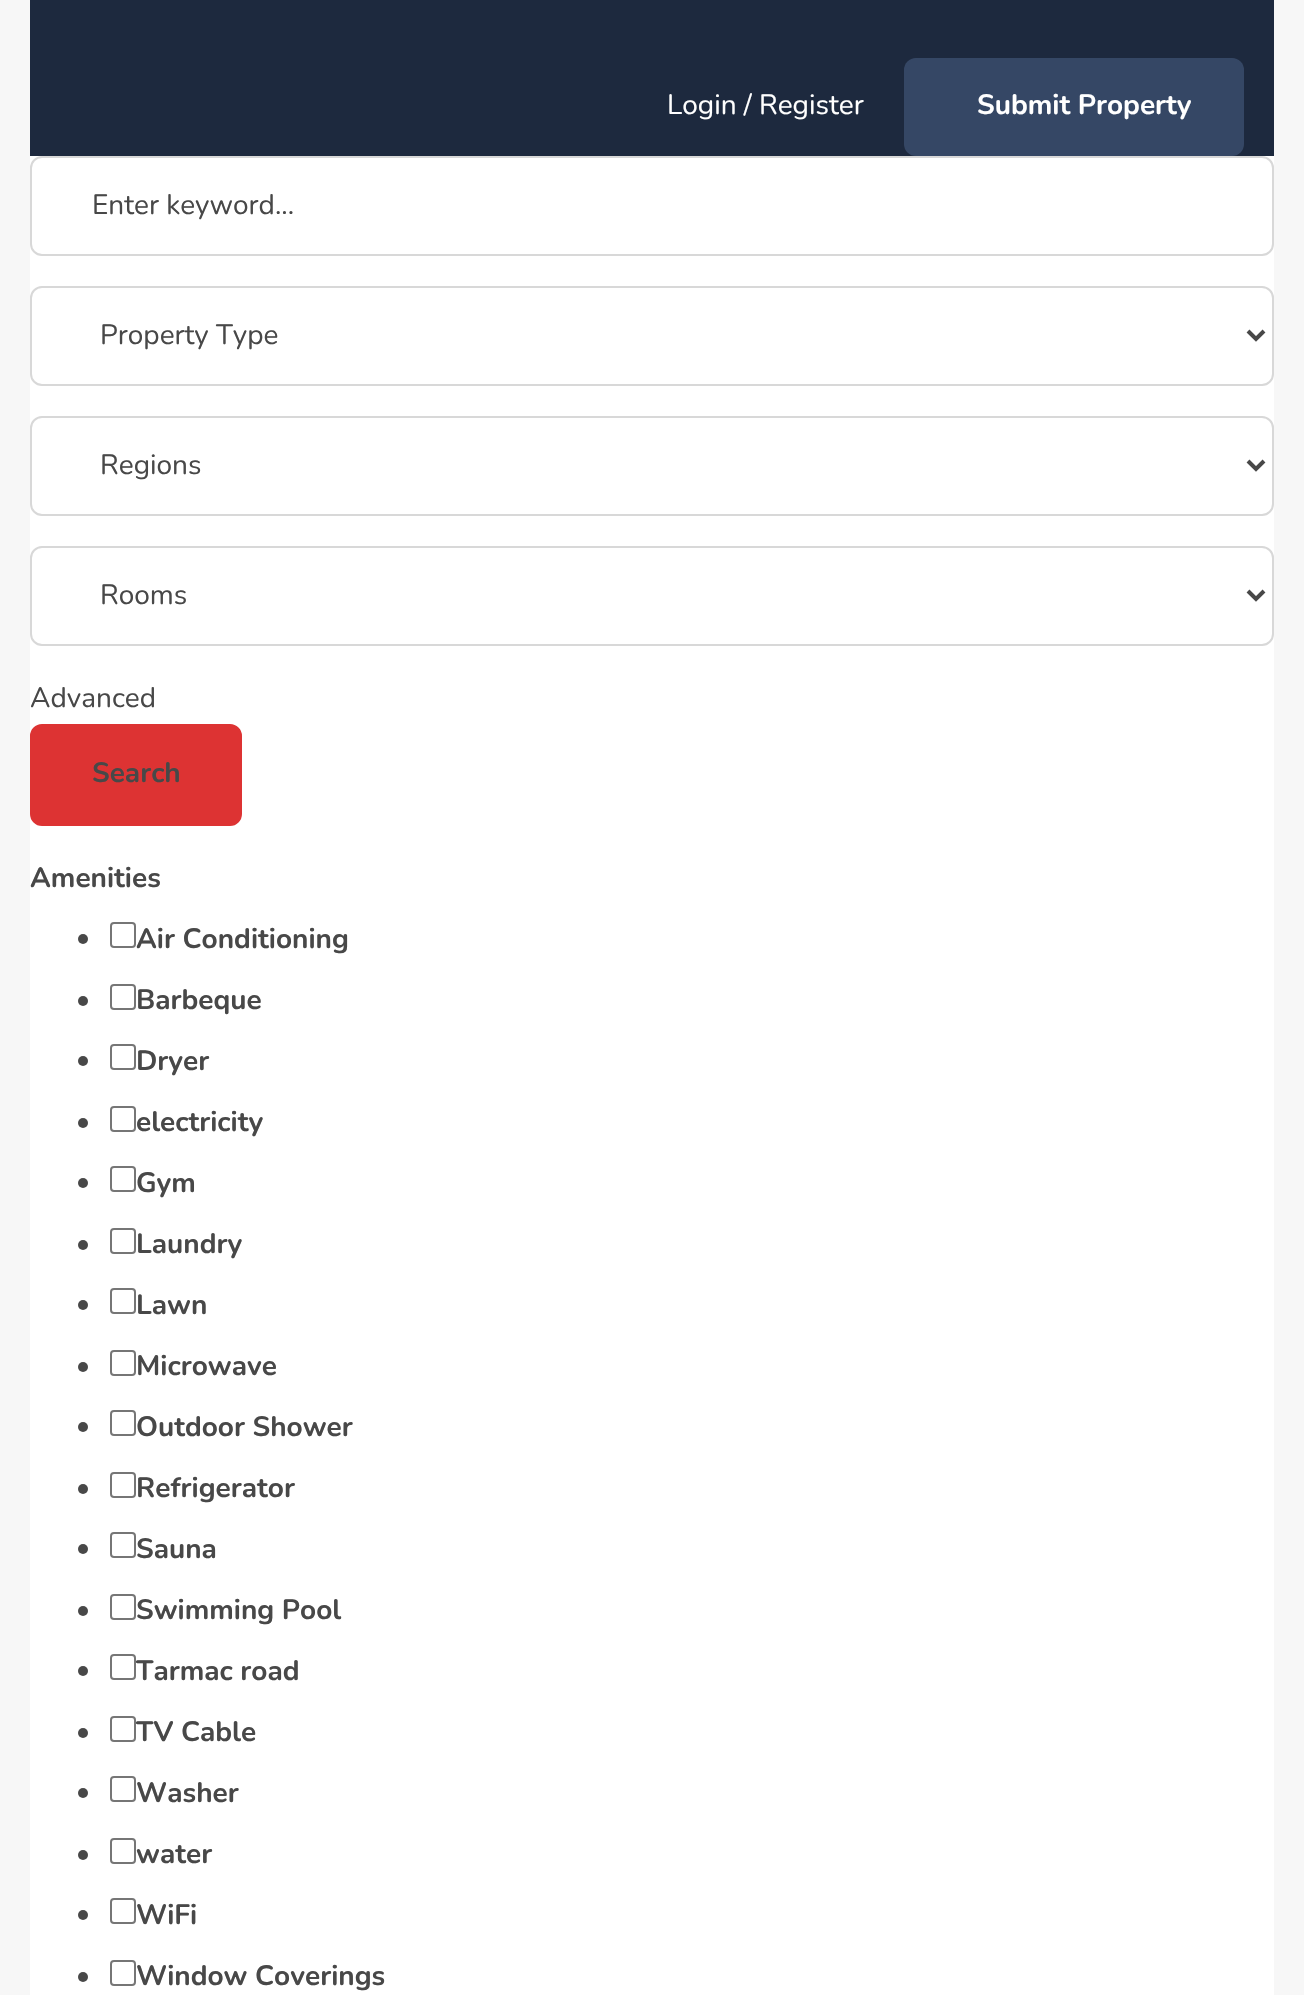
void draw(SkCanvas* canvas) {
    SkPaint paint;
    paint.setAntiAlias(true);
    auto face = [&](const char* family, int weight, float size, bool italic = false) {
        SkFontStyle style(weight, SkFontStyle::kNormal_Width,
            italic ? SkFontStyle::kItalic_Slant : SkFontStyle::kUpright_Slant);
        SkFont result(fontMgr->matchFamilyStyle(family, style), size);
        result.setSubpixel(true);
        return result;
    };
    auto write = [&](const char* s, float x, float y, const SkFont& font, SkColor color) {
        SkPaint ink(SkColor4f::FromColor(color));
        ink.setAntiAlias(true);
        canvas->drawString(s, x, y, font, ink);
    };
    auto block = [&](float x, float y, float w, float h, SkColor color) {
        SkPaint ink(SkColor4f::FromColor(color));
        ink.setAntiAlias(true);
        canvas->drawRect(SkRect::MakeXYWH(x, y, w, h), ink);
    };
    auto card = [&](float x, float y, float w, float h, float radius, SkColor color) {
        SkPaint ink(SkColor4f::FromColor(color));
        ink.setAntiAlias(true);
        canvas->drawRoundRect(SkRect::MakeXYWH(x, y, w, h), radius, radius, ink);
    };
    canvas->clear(SkColorSetRGB(247, 247, 247));
    block(30, 0, 1244, 156, SkColorSetRGB(29, 41, 62));
    auto kFont1 = face("Nunito", 400, 28);
    write("Login / Register", 667, 114, kFont1, SK_ColorWHITE);
    card(904, 58, 340, 98, 12, SkColorSetRGB(53, 71, 101));
    auto kFont2 = face("Nunito", 700, 28);
    write("Submit Property", 977, 114, kFont2, SK_ColorWHITE);
    block(30, 156, 1244, 1839, SK_ColorWHITE);
    paint.setStyle(SkPaint::kStroke_Style);
    paint.setStrokeWidth(2);
    paint.setColor(SkColorSetRGB(216, 216, 216));
    canvas->drawRoundRect(SkRect::MakeXYWH(31, 157, 1242, 98), 11, 11, paint);
    write("Enter keyword...", 92, 214, kFont1, SkColorSetRGB(72, 72, 72));
    canvas->drawRoundRect(SkRect::MakeXYWH(31, 287, 1242, 98), 11, 11, paint);
    paint.setStrokeWidth(4);
    paint.setColor(SkColorSetRGB(72, 72, 72));
    canvas->drawPath(SkPathBuilder().moveTo(1248, 331).lineTo(1256, 339).lineTo(1264, 331).detach(), paint);
    write("Property Type", 100, 344, kFont1, SkColorSetRGB(72, 72, 72));
    paint.setStrokeWidth(2);
    paint.setColor(SkColorSetRGB(216, 216, 216));
    canvas->drawRoundRect(SkRect::MakeXYWH(31, 417, 1242, 98), 11, 11, paint);
    paint.setStrokeWidth(4);
    paint.setColor(SkColorSetRGB(72, 72, 72));
    canvas->drawPath(SkPathBuilder().moveTo(1248, 461).lineTo(1256, 469).lineTo(1264, 461).detach(), paint);
    write("Regions", 100, 474, kFont1, SkColorSetRGB(72, 72, 72));
    paint.setStrokeWidth(2);
    paint.setColor(SkColorSetRGB(216, 216, 216));
    canvas->drawRoundRect(SkRect::MakeXYWH(31, 547, 1242, 98), 11, 11, paint);
    paint.setStrokeWidth(4);
    paint.setColor(SkColorSetRGB(72, 72, 72));
    canvas->drawPath(SkPathBuilder().moveTo(1248, 591).lineTo(1256, 599).lineTo(1264, 591).detach(), paint);
    write("Rooms", 100, 604, kFont1, SkColorSetRGB(72, 72, 72));
    write("Advanced", 30, 707, kFont1, SkColorSetRGB(72, 72, 72));
    paint.setStyle(SkPaint::kFill_Style);
    paint.setColor(SkColorSetRGB(221, 51, 51));
    canvas->drawRoundRect(SkRect::MakeXYWH(31, 725, 210, 100), 11, 11, paint);
    paint.setStyle(SkPaint::kStroke_Style);
    paint.setStrokeWidth(2);
    canvas->drawRoundRect(SkRect::MakeXYWH(31, 725, 210, 100), 11, 11, paint);
    write("Search", 92, 782, kFont2, SkColorSetRGB(72, 72, 72));
    write("Amenities", 30, 887, kFont2, SkColorSetRGB(72, 72, 72));
    paint.setStyle(SkPaint::kFill_Style);
    paint.setColor(SkColorSetRGB(72, 72, 72));
    canvas->drawCircle(83, 939, 5, paint);
    paint.setStyle(SkPaint::kStroke_Style);
    paint.setColor(SkColorSetRGB(118, 118, 118));
    canvas->drawRoundRect(SkRect::MakeXYWH(111, 923, 24, 24), 3, 3, paint);
    write("Air Conditioning", 136, 948, kFont2, SkColorSetRGB(72, 72, 72));
    paint.setStyle(SkPaint::kFill_Style);
    paint.setColor(SkColorSetRGB(72, 72, 72));
    canvas->drawCircle(83, 1001, 5, paint);
    paint.setStyle(SkPaint::kStroke_Style);
    paint.setColor(SkColorSetRGB(118, 118, 118));
    canvas->drawRoundRect(SkRect::MakeXYWH(111, 985, 24, 24), 3, 3, paint);
    write("Barbeque", 136, 1009, kFont2, SkColorSetRGB(72, 72, 72));
    paint.setStyle(SkPaint::kFill_Style);
    paint.setColor(SkColorSetRGB(72, 72, 72));
    canvas->drawCircle(83, 1061, 5, paint);
    paint.setStyle(SkPaint::kStroke_Style);
    paint.setColor(SkColorSetRGB(118, 118, 118));
    canvas->drawRoundRect(SkRect::MakeXYWH(111, 1045, 24, 24), 3, 3, paint);
    write("Dryer", 136, 1070, kFont2, SkColorSetRGB(72, 72, 72));
    paint.setStyle(SkPaint::kFill_Style);
    paint.setColor(SkColorSetRGB(72, 72, 72));
    canvas->drawCircle(83, 1123, 5, paint);
    paint.setStyle(SkPaint::kStroke_Style);
    paint.setColor(SkColorSetRGB(118, 118, 118));
    canvas->drawRoundRect(SkRect::MakeXYWH(111, 1107, 24, 24), 3, 3, paint);
    write("electricity", 136, 1131, kFont2, SkColorSetRGB(72, 72, 72));
    paint.setStyle(SkPaint::kFill_Style);
    paint.setColor(SkColorSetRGB(72, 72, 72));
    canvas->drawCircle(83, 1183, 5, paint);
    paint.setStyle(SkPaint::kStroke_Style);
    paint.setColor(SkColorSetRGB(118, 118, 118));
    canvas->drawRoundRect(SkRect::MakeXYWH(111, 1167, 24, 24), 3, 3, paint);
    write("Gym", 136, 1192, kFont2, SkColorSetRGB(72, 72, 72));
    paint.setStyle(SkPaint::kFill_Style);
    paint.setColor(SkColorSetRGB(72, 72, 72));
    canvas->drawCircle(83, 1245, 5, paint);
    paint.setStyle(SkPaint::kStroke_Style);
    paint.setColor(SkColorSetRGB(118, 118, 118));
    canvas->drawRoundRect(SkRect::MakeXYWH(111, 1229, 24, 24), 3, 3, paint);
    write("Laundry", 136, 1253, kFont2, SkColorSetRGB(72, 72, 72));
    paint.setStyle(SkPaint::kFill_Style);
    paint.setColor(SkColorSetRGB(72, 72, 72));
    canvas->drawCircle(83, 1305, 5, paint);
    paint.setStyle(SkPaint::kStroke_Style);
    paint.setColor(SkColorSetRGB(118, 118, 118));
    canvas->drawRoundRect(SkRect::MakeXYWH(111, 1289, 24, 24), 3, 3, paint);
    write("Lawn", 136, 1314, kFont2, SkColorSetRGB(72, 72, 72));
    paint.setStyle(SkPaint::kFill_Style);
    paint.setColor(SkColorSetRGB(72, 72, 72));
    canvas->drawCircle(83, 1367, 5, paint);
    paint.setStyle(SkPaint::kStroke_Style);
    paint.setColor(SkColorSetRGB(118, 118, 118));
    canvas->drawRoundRect(SkRect::MakeXYWH(111, 1351, 24, 24), 3, 3, paint);
    write("Microwave", 136, 1375, kFont2, SkColorSetRGB(72, 72, 72));
    paint.setStyle(SkPaint::kFill_Style);
    paint.setColor(SkColorSetRGB(72, 72, 72));
    canvas->drawCircle(83, 1427, 5, paint);
    paint.setStyle(SkPaint::kStroke_Style);
    paint.setColor(SkColorSetRGB(118, 118, 118));
    canvas->drawRoundRect(SkRect::MakeXYWH(111, 1411, 24, 24), 3, 3, paint);
    write("Outdoor Shower", 136, 1436, kFont2, SkColorSetRGB(72, 72, 72));
    paint.setStyle(SkPaint::kFill_Style);
    paint.setColor(SkColorSetRGB(72, 72, 72));
    canvas->drawCircle(83, 1489, 5, paint);
    paint.setStyle(SkPaint::kStroke_Style);
    paint.setColor(SkColorSetRGB(118, 118, 118));
    canvas->drawRoundRect(SkRect::MakeXYWH(111, 1473, 24, 24), 3, 3, paint);
    write("Refrigerator", 136, 1497, kFont2, SkColorSetRGB(72, 72, 72));
    paint.setStyle(SkPaint::kFill_Style);
    paint.setColor(SkColorSetRGB(72, 72, 72));
    canvas->drawCircle(83, 1549, 5, paint);
    paint.setStyle(SkPaint::kStroke_Style);
    paint.setColor(SkColorSetRGB(118, 118, 118));
    canvas->drawRoundRect(SkRect::MakeXYWH(111, 1533, 24, 24), 3, 3, paint);
    write("Sauna", 136, 1558, kFont2, SkColorSetRGB(72, 72, 72));
    paint.setStyle(SkPaint::kFill_Style);
    paint.setColor(SkColorSetRGB(72, 72, 72));
    canvas->drawCircle(83, 1611, 5, paint);
    paint.setStyle(SkPaint::kStroke_Style);
    paint.setColor(SkColorSetRGB(118, 118, 118));
    canvas->drawRoundRect(SkRect::MakeXYWH(111, 1595, 24, 24), 3, 3, paint);
    write("Swimming Pool", 136, 1619, kFont2, SkColorSetRGB(72, 72, 72));
    paint.setStyle(SkPaint::kFill_Style);
    paint.setColor(SkColorSetRGB(72, 72, 72));
    canvas->drawCircle(83, 1671, 5, paint);
    paint.setStyle(SkPaint::kStroke_Style);
    paint.setColor(SkColorSetRGB(118, 118, 118));
    canvas->drawRoundRect(SkRect::MakeXYWH(111, 1655, 24, 24), 3, 3, paint);
    write("Tarmac road", 136, 1680, kFont2, SkColorSetRGB(72, 72, 72));
    paint.setStyle(SkPaint::kFill_Style);
    paint.setColor(SkColorSetRGB(72, 72, 72));
    canvas->drawCircle(83, 1733, 5, paint);
    paint.setStyle(SkPaint::kStroke_Style);
    paint.setColor(SkColorSetRGB(118, 118, 118));
    canvas->drawRoundRect(SkRect::MakeXYWH(111, 1717, 24, 24), 3, 3, paint);
    write("TV Cable", 136, 1741, kFont2, SkColorSetRGB(72, 72, 72));
    paint.setStyle(SkPaint::kFill_Style);
    paint.setColor(SkColorSetRGB(72, 72, 72));
    canvas->drawCircle(83, 1793, 5, paint);
    paint.setStyle(SkPaint::kStroke_Style);
    paint.setColor(SkColorSetRGB(118, 118, 118));
    canvas->drawRoundRect(SkRect::MakeXYWH(111, 1777, 24, 24), 3, 3, paint);
    write("Washer", 136, 1802, kFont2, SkColorSetRGB(72, 72, 72));
    paint.setStyle(SkPaint::kFill_Style);
    paint.setColor(SkColorSetRGB(72, 72, 72));
    canvas->drawCircle(83, 1855, 5, paint);
    paint.setStyle(SkPaint::kStroke_Style);
    paint.setColor(SkColorSetRGB(118, 118, 118));
    canvas->drawRoundRect(SkRect::MakeXYWH(111, 1839, 24, 24), 3, 3, paint);
    write("water", 136, 1863, kFont2, SkColorSetRGB(72, 72, 72));
    paint.setStyle(SkPaint::kFill_Style);
    paint.setColor(SkColorSetRGB(72, 72, 72));
    canvas->drawCircle(83, 1915, 5, paint);
    paint.setStyle(SkPaint::kStroke_Style);
    paint.setColor(SkColorSetRGB(118, 118, 118));
    canvas->drawRoundRect(SkRect::MakeXYWH(111, 1899, 24, 24), 3, 3, paint);
    write("WiFi", 136, 1924, kFont2, SkColorSetRGB(72, 72, 72));
    paint.setStyle(SkPaint::kFill_Style);
    paint.setColor(SkColorSetRGB(72, 72, 72));
    canvas->drawCircle(83, 1977, 5, paint);
    paint.setStyle(SkPaint::kStroke_Style);
    paint.setColor(SkColorSetRGB(118, 118, 118));
    canvas->drawRoundRect(SkRect::MakeXYWH(111, 1961, 24, 24), 3, 3, paint);
    write("Window Coverings", 136, 1985, kFont2, SkColorSetRGB(72, 72, 72));
}
